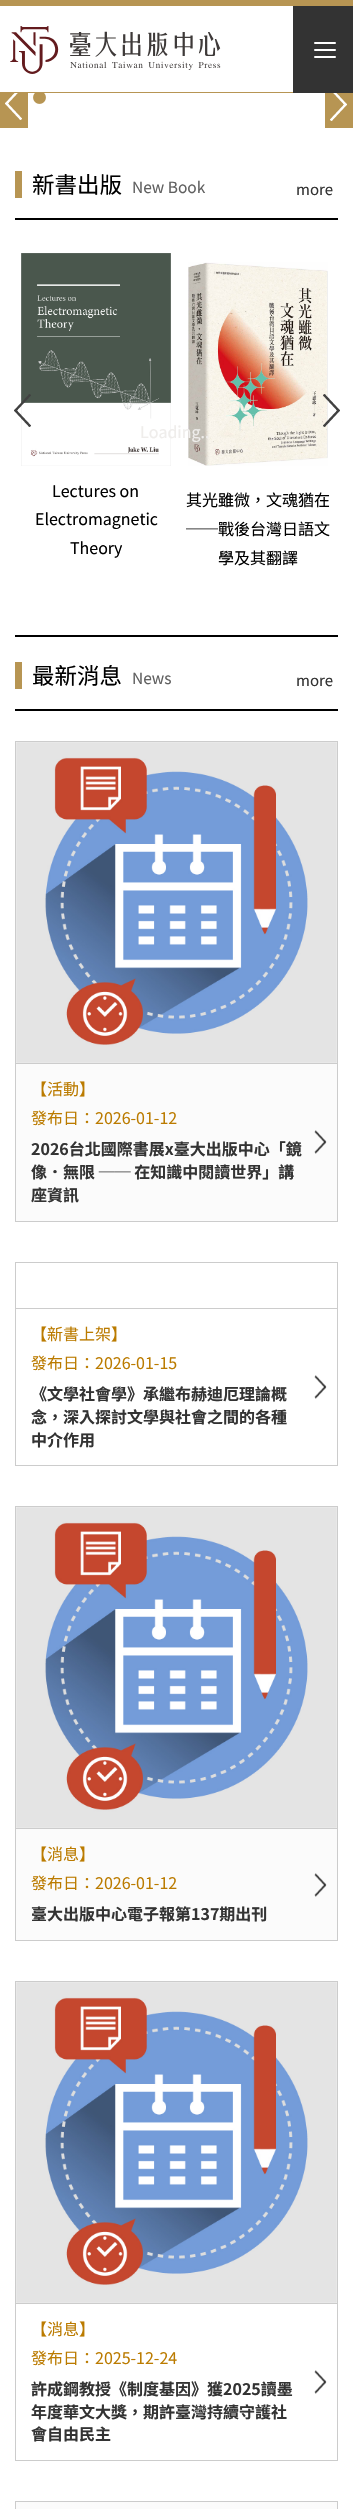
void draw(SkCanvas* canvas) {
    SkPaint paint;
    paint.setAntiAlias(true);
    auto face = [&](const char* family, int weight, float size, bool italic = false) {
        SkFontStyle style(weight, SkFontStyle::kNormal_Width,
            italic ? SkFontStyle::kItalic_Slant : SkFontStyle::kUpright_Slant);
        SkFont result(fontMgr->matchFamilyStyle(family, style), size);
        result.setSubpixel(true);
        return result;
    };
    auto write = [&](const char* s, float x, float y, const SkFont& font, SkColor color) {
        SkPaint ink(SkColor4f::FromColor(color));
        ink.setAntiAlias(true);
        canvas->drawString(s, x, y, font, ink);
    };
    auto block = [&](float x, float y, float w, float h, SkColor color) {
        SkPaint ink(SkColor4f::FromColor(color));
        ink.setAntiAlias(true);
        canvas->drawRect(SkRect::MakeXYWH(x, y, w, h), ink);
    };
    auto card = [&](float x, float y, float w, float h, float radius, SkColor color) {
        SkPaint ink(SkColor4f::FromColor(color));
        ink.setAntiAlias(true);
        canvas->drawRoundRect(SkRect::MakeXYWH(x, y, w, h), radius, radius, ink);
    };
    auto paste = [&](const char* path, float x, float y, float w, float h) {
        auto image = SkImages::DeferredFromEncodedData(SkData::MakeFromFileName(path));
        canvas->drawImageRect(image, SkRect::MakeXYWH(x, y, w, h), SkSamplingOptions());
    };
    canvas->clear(SK_ColorWHITE);
    block(0, 0, 353, 6, SkColorSetRGB(183, 149, 83));
    block(0, 92, 293, 1, SkColorSetRGB(183, 149, 83));
    paste("pic1.png", 10, 26, 211, 48);
    block(293, 6, 60, 87, SkColorSetRGB(51, 51, 51));
    card(314, 42, 22, 2, 1, SK_ColorWHITE);
    card(314, 49, 22, 2, 1, SK_ColorWHITE);
    card(314, 56, 22, 2, 1, SK_ColorWHITE);
    block(0, 93, 28, 35, SkColorSetRGB(183, 149, 83));
    paste("pic2.png", 5, 93, 17, 27);
    paste("pic3.png", 33, 93, 13, 11);
    block(325, 93, 28, 35, SkColorSetRGB(183, 149, 83));
    paste("pic4.png", 330, 93, 17, 28);
    block(15, 218, 323, 2, SK_ColorBLACK);
    block(15, 171, 7, 27, SkColorSetRGB(183, 149, 83));
    auto kFont1 = face("Noto Sans TC", 400, 22.5f);
    write("新書出版", 32, 193, kFont1, SK_ColorBLACK);
    auto kFont2 = face("Noto Sans TC", 400, 15.5f);
    write("New Book", 132, 193, kFont2, SkColorSetRGB(96, 96, 96));
    auto kFont3 = face("Noto Sans TC", 400, 15);
    write("more", 296, 195, kFont3, SkColorSetRGB(51, 51, 51));
    paste("pic7.png", 21, 253, 150, 213);
    paste("pic5.png", 14, 394, 17, 33);
    paste("pic8.png", 188, 262, 140, 204);
    paste("pic6.png", 323, 394, 17, 33);
    auto kFont4 = face("Noto Sans TC", 400, 16);
    write("Loading..", 140, 438, kFont4, SkColorSetRGB(239, 237, 235));
    write("Lectures on", 52, 497, kFont4, SK_ColorBLACK);
    write("Electromagnetic", 35, 525, kFont4, SK_ColorBLACK);
    write("Theory", 70, 554, kFont4, SK_ColorBLACK);
    write("其光雖微，文魂猶在", 186, 506, kFont4, SK_ColorBLACK);
    write("──戰後台灣日語文", 186, 535, kFont4, SK_ColorBLACK);
    write("學及其翻譯", 218, 564, kFont4, SK_ColorBLACK);
    block(15, 635, 323, 2, SK_ColorBLACK);
    block(15, 709, 323, 2, SK_ColorBLACK);
    block(15, 662, 7, 27, SkColorSetRGB(183, 149, 83));
    write("最新消息", 32, 684, kFont1, SK_ColorBLACK);
    write("News", 132, 684, kFont2, SkColorSetRGB(96, 96, 96));
    write("more", 296, 686, kFont3, SkColorSetRGB(51, 51, 51));
    block(16, 1064, 321, 157, SkColorSetRGB(251, 251, 251));
    paint.setStyle(SkPaint::kStroke_Style);
    paint.setStrokeWidth(1);
    paint.setColor(SkColorSetRGB(204, 204, 204));
    canvas->drawRect(SkRect::MakeXYWH(15.5f, 741.5f, 322, 322), paint);
    paste("pic9.png", 16, 742, 321, 321);
    block(337, 1064, 1, 158, SkColorSetRGB(204, 204, 204));
    block(15, 1221, 323, 1, SkColorSetRGB(204, 204, 204));
    block(15, 1064, 1, 158, SkColorSetRGB(204, 204, 204));
    write("【活動】", 31, 1095, kFont4, SkColorSetRGB(187, 123, 0));
    write("發布日：2026-01-12", 31, 1124, kFont4, SkColorSetRGB(187, 123, 0));
    auto kFont5 = face("Noto Sans TC", 700, 16);
    write("2026台北國際書展x臺大出版中心「鏡", 31, 1155, kFont5, SkColorSetRGB(51, 51, 51));
    write("像．無限 ── 在知識中閱讀世界」講", 31, 1178, kFont5, SkColorSetRGB(51, 51, 51));
    write("座資訊", 31, 1201, kFont5, SkColorSetRGB(51, 51, 51));
    paste("pic10.png", 314, 1130, 13, 24);
    canvas->drawRect(SkRect::MakeXYWH(15.5f, 1262.5f, 322, 46), paint);
    block(337, 1309, 1, 157, SkColorSetRGB(204, 204, 204));
    block(15, 1465, 323, 1, SkColorSetRGB(204, 204, 204));
    block(15, 1309, 1, 157, SkColorSetRGB(204, 204, 204));
    write("【新書上架】", 31, 1340, kFont4, SkColorSetRGB(187, 123, 0));
    write("發布日：2026-01-15", 31, 1369, kFont4, SkColorSetRGB(187, 123, 0));
    write("《文學社會學》承繼布赫迪厄理論概", 31, 1400, kFont5, SkColorSetRGB(51, 51, 51));
    write("念，深入探討文學與社會之間的各種", 31, 1423, kFont5, SkColorSetRGB(51, 51, 51));
    write("中介作用", 31, 1446, kFont5, SkColorSetRGB(51, 51, 51));
    paste("pic11.png", 314, 1375, 13, 24);
    block(16, 1829, 321, 111, SkColorSetRGB(251, 251, 251));
    canvas->drawRect(SkRect::MakeXYWH(15.5f, 1506.5f, 322, 322), paint);
    paste("pic9.png", 16, 1507, 321, 321);
    block(337, 1829, 1, 112, SkColorSetRGB(204, 204, 204));
    block(15, 1940, 323, 1, SkColorSetRGB(204, 204, 204));
    block(15, 1829, 1, 112, SkColorSetRGB(204, 204, 204));
    write("【消息】", 31, 1860, kFont4, SkColorSetRGB(187, 123, 0));
    write("發布日：2026-01-12", 31, 1889, kFont4, SkColorSetRGB(187, 123, 0));
    paste("pic10.png", 314, 1873, 13, 24);
    write("臺大出版中心電子報第137期出刊", 31, 1920, kFont5, SkColorSetRGB(51, 51, 51));
    canvas->drawRect(SkRect::MakeXYWH(15.5f, 1981.5f, 322, 322), paint);
    paste("pic9.png", 16, 1982, 321, 321);
    block(337, 2304, 1, 157, SkColorSetRGB(204, 204, 204));
    block(15, 2460, 323, 1, SkColorSetRGB(204, 204, 204));
    block(15, 2304, 1, 157, SkColorSetRGB(204, 204, 204));
    write("【消息】", 31, 2335, kFont4, SkColorSetRGB(187, 123, 0));
    write("發布日：2025-12-24", 31, 2364, kFont4, SkColorSetRGB(187, 123, 0));
    write("許成鋼教授《制度基因》獲2025讀墨", 31, 2395, kFont5, SkColorSetRGB(51, 51, 51));
    write("年度華文大獎，期許臺灣持續守護社", 31, 2418, kFont5, SkColorSetRGB(51, 51, 51));
    write("會自由民主", 31, 2440, kFont5, SkColorSetRGB(51, 51, 51));
    paste("pic11.png", 314, 2370, 13, 24);
    paint.setStyle(SkPaint::kFill_Style);
    paint.setColor(SkColorSetRGB(251, 251, 251));
    canvas->drawRect(SkRect::MakeXYWH(15.5f, 2501.5f, 322, 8), paint);
    paint.setStyle(SkPaint::kStroke_Style);
    paint.setColor(SkColorSetRGB(204, 204, 204));
    canvas->drawRect(SkRect::MakeXYWH(15.5f, 2501.5f, 322, 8), paint);
}
